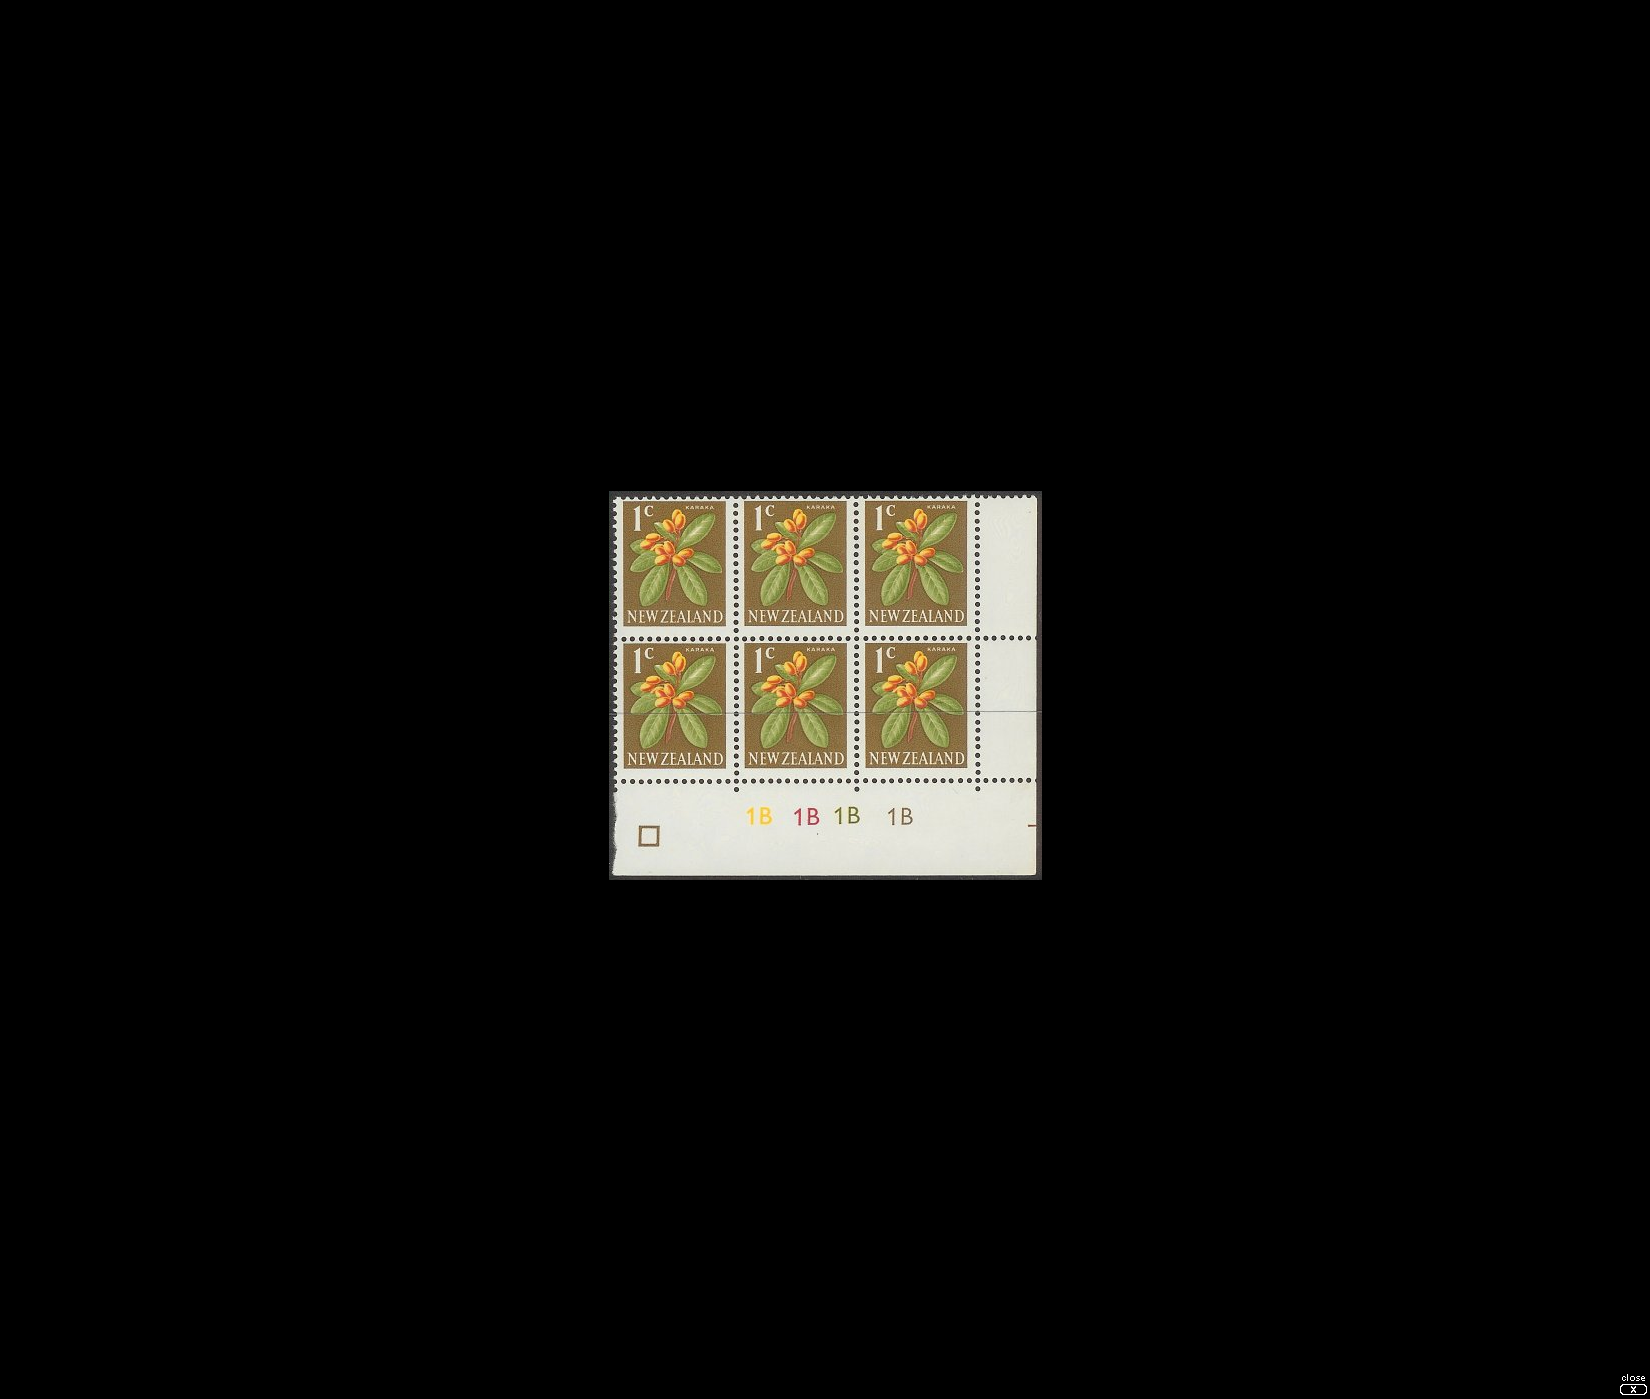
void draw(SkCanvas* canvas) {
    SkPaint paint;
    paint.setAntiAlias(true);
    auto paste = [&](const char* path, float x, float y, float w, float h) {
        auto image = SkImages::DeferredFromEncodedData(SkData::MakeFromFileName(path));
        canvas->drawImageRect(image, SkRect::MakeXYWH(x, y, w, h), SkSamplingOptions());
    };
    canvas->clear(SK_ColorBLACK);
    paste("pic1.png", 609, 491, 433, 389);
    paste("pic2.png", 1620, 1374, 27, 21);
}
